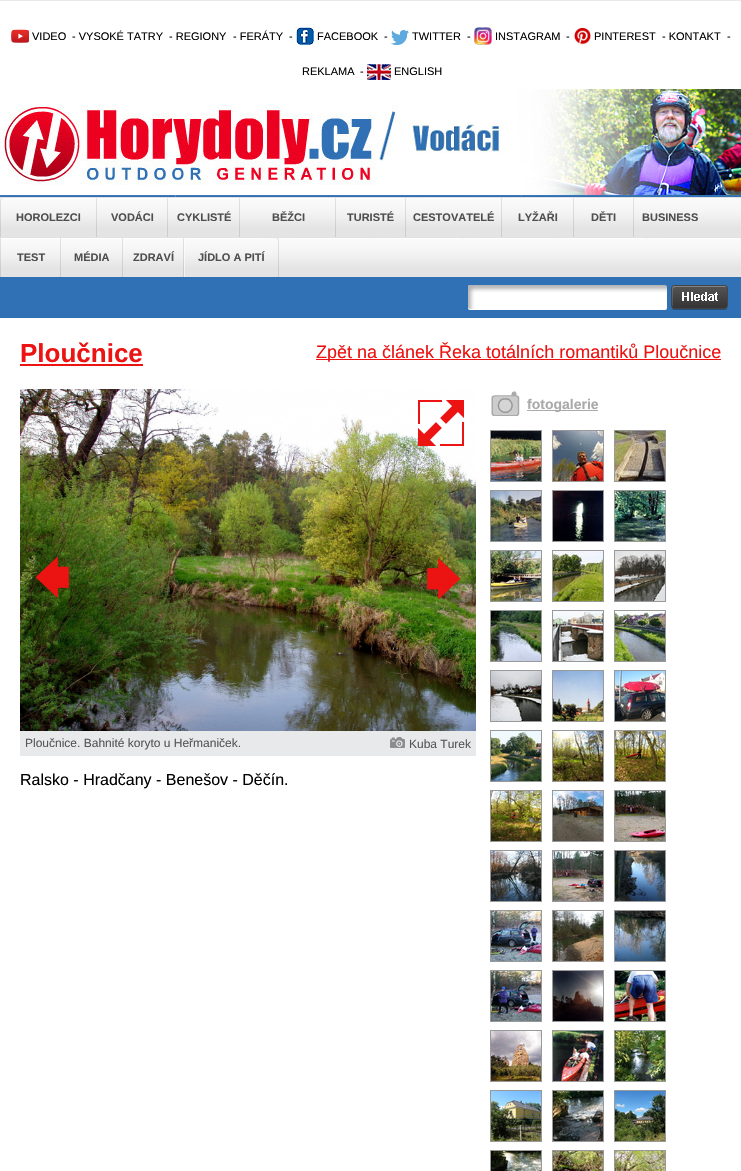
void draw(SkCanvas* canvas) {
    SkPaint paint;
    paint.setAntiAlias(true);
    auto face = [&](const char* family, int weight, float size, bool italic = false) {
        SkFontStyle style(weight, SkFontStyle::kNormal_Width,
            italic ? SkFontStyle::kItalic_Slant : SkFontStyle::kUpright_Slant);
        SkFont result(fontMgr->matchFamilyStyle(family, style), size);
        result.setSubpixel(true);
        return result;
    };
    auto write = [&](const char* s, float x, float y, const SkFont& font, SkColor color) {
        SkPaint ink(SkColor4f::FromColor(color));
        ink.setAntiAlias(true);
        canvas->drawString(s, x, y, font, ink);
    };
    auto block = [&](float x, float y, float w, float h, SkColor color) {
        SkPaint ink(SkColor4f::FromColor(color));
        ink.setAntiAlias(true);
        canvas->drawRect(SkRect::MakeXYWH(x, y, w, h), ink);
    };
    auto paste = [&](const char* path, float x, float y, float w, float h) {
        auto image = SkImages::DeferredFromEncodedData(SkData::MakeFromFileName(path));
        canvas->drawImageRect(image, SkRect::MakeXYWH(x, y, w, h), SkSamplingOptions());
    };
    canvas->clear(SkColorSetRGB(231, 233, 234));
    block(0, 1, 741, 1170, SK_ColorWHITE);
    paste("pic1.png", 11, 29, 18, 14);
    auto kFont1 = face("Liberation Sans", 400, 11);
    write("VIDEO", 32, 40, kFont1, SK_ColorBLACK);
    write("- VYSOKÉ TATRY", 72, 40, kFont1, SK_ColorBLACK);
    write("- REGIONY", 169, 40, kFont1, SK_ColorBLACK);
    write("- FERÁTY", 233, 40, kFont1, SK_ColorBLACK);
    write("-", 289, 40, kFont1, SK_ColorBLACK);
    paste("pic2.png", 296, 27, 18, 18);
    write("FACEBOOK", 317, 40, kFont1, SK_ColorBLACK);
    write("-", 384, 40, kFont1, SK_ColorBLACK);
    paste("pic3.png", 391, 30, 18, 15);
    write("TWITTER", 412, 40, kFont1, SK_ColorBLACK);
    write("-", 467, 40, kFont1, SK_ColorBLACK);
    paste("pic4.png", 474, 27, 18, 18);
    write("INSTAGRAM", 495, 40, kFont1, SK_ColorBLACK);
    write("-", 566, 40, kFont1, SK_ColorBLACK);
    paste("pic5.png", 574, 27, 17, 18);
    write("PINTEREST", 594, 40, kFont1, SK_ColorBLACK);
    write("- KONTAKT", 662, 40, kFont1, SK_ColorBLACK);
    write("-", 727, 40, kFont1, SK_ColorBLACK);
    write("REKLAMA", 302, 75, kFont1, SK_ColorBLACK);
    write("-", 360, 75, kFont1, SK_ColorBLACK);
    paste("pic6.png", 367, 64, 24, 16);
    write("ENGLISH", 394, 75, kFont1, SK_ColorBLACK);
    paste("pic7.png", 0, 89, 741, 108);
    paste("pic8.png", 0, 197, 741, 80);
    paste("pic9.png", 0, 198, 94, 39);
    auto kFont2 = face("Liberation Sans", 700, 11);
    write("HOROLEZCI", 16, 221, kFont2, SkColorSetRGB(80, 79, 79));
    paste("pic10.png", 96, 198, 1, 39);
    paste("pic11.png", 97, 198, 70, 39);
    write("VODÁCI", 111, 221, kFont2, SkColorSetRGB(80, 79, 79));
    paste("pic10.png", 167, 198, 1, 39);
    paste("pic12.png", 168, 198, 71, 39);
    write("CYKLISTÉ", 177, 221, kFont2, SkColorSetRGB(80, 79, 79));
    paste("pic10.png", 239, 198, 1, 39);
    paste("pic13.png", 240, 198, 95, 39);
    write("BĚŽCI", 272, 221, kFont2, SkColorSetRGB(80, 79, 79));
    paste("pic10.png", 335, 198, 1, 39);
    paste("pic14.png", 336, 198, 69, 39);
    write("TURISTÉ", 347, 221, kFont2, SkColorSetRGB(80, 79, 79));
    paste("pic10.png", 405, 198, 1, 39);
    paste("pic13.png", 406, 198, 95, 39);
    write("CESTOVATELÉ", 413, 221, kFont2, SkColorSetRGB(80, 79, 79));
    paste("pic10.png", 501, 198, 1, 39);
    paste("pic12.png", 502, 198, 71, 39);
    write("LYŽAŘI", 518, 221, kFont2, SkColorSetRGB(80, 79, 79));
    paste("pic10.png", 573, 198, 1, 39);
    paste("pic15.png", 574, 198, 59, 39);
    write("DĚTI", 591, 221, kFont2, SkColorSetRGB(80, 79, 79));
    paste("pic10.png", 633, 198, 1, 39);
    paste("pic12.png", 634, 198, 71, 39);
    write("BUSINESS", 642, 221, kFont2, SkColorSetRGB(80, 79, 79));
    paste("pic10.png", 0, 238, 1, 39);
    paste("pic15.png", 1, 238, 59, 39);
    write("TEST", 17, 261, kFont2, SkColorSetRGB(80, 79, 79));
    paste("pic10.png", 60, 238, 1, 39);
    paste("pic16.png", 61, 238, 61, 39);
    write("MÉDIA", 74, 261, kFont2, SkColorSetRGB(80, 79, 79));
    paste("pic10.png", 122, 238, 1, 39);
    paste("pic15.png", 123, 238, 59, 39);
    write("ZDRAVÍ", 133, 261, kFont2, SkColorSetRGB(80, 79, 79));
    paste("pic17.png", 183, 238, 96, 39);
    write("JÍDLO A PITÍ", 198, 261, kFont2, SkColorSetRGB(80, 79, 79));
    block(0, 277, 741, 41, SkColorSetRGB(48, 113, 181));
    paste("pic18.png", 468, 285, 199, 25);
    paste("pic19.png", 671, 285, 57, 25);
    auto kFont3 = face("Liberation Sans", 700, 26);
    write("Ploučnice", 20, 362, kFont3, SkColorSetRGB(236, 19, 19));
    block(20, 364, 123, 2, SkColorSetRGB(236, 19, 19));
    block(316, 359, 405, 1, SkColorSetRGB(236, 19, 19));
    auto kFont4 = face("Liberation Sans", 400, 18);
    write("Zpět na článek Řeka totálních romantiků Ploučnice", 316, 358, kFont4, SkColorSetRGB(236, 19, 19));
    paste("pic20.png", 491, 391, 29, 25);
    block(527, 410, 71, 1, SkColorSetRGB(170, 170, 170));
    auto kFont5 = face("Liberation Sans", 700, 14);
    write("fotogalerie", 527, 409, kFont5, SkColorSetRGB(170, 170, 170));
    paint.setStyle(SkPaint::kStroke_Style);
    paint.setStrokeWidth(1);
    paint.setColor(SkColorSetRGB(153, 153, 153));
    canvas->drawRect(SkRect::MakeXYWH(490.5f, 430.5f, 51, 51), paint);
    paste("pic21.png", 491, 431, 50, 50);
    canvas->drawRect(SkRect::MakeXYWH(552.5f, 430.5f, 51, 51), paint);
    paste("pic22.png", 553, 431, 50, 50);
    canvas->drawRect(SkRect::MakeXYWH(614.5f, 430.5f, 51, 51), paint);
    paste("pic23.png", 615, 431, 50, 50);
    canvas->drawRect(SkRect::MakeXYWH(490.5f, 490.5f, 51, 51), paint);
    paste("pic24.png", 491, 491, 50, 50);
    canvas->drawRect(SkRect::MakeXYWH(552.5f, 490.5f, 51, 51), paint);
    paste("pic25.png", 553, 491, 50, 50);
    canvas->drawRect(SkRect::MakeXYWH(614.5f, 490.5f, 51, 51), paint);
    paste("pic26.png", 615, 491, 50, 50);
    canvas->drawRect(SkRect::MakeXYWH(490.5f, 550.5f, 51, 51), paint);
    paste("pic27.png", 491, 551, 50, 50);
    canvas->drawRect(SkRect::MakeXYWH(552.5f, 550.5f, 51, 51), paint);
    paste("pic28.png", 553, 551, 50, 50);
    canvas->drawRect(SkRect::MakeXYWH(614.5f, 550.5f, 51, 51), paint);
    paste("pic29.png", 615, 551, 50, 50);
    canvas->drawRect(SkRect::MakeXYWH(490.5f, 610.5f, 51, 51), paint);
    paste("pic30.png", 491, 611, 50, 50);
    canvas->drawRect(SkRect::MakeXYWH(552.5f, 610.5f, 51, 51), paint);
    paste("pic31.png", 553, 611, 50, 50);
    canvas->drawRect(SkRect::MakeXYWH(614.5f, 610.5f, 51, 51), paint);
    paste("pic32.png", 615, 611, 50, 50);
    canvas->drawRect(SkRect::MakeXYWH(490.5f, 670.5f, 51, 51), paint);
    paste("pic33.png", 491, 671, 50, 50);
    canvas->drawRect(SkRect::MakeXYWH(552.5f, 670.5f, 51, 51), paint);
    paste("pic34.png", 553, 671, 50, 50);
    canvas->drawRect(SkRect::MakeXYWH(614.5f, 670.5f, 51, 51), paint);
    paste("pic35.png", 615, 671, 50, 50);
    canvas->drawRect(SkRect::MakeXYWH(490.5f, 730.5f, 51, 51), paint);
    paste("pic36.png", 491, 731, 50, 50);
    canvas->drawRect(SkRect::MakeXYWH(552.5f, 730.5f, 51, 51), paint);
    paste("pic37.png", 553, 731, 50, 50);
    canvas->drawRect(SkRect::MakeXYWH(614.5f, 730.5f, 51, 51), paint);
    paste("pic38.png", 615, 731, 50, 50);
    canvas->drawRect(SkRect::MakeXYWH(490.5f, 790.5f, 51, 51), paint);
    paste("pic39.png", 491, 791, 50, 50);
    canvas->drawRect(SkRect::MakeXYWH(552.5f, 790.5f, 51, 51), paint);
    paste("pic40.png", 553, 791, 50, 50);
    canvas->drawRect(SkRect::MakeXYWH(614.5f, 790.5f, 51, 51), paint);
    paste("pic41.png", 615, 791, 50, 50);
    canvas->drawRect(SkRect::MakeXYWH(490.5f, 850.5f, 51, 51), paint);
    paste("pic42.png", 491, 851, 50, 50);
    canvas->drawRect(SkRect::MakeXYWH(552.5f, 850.5f, 51, 51), paint);
    paste("pic43.png", 553, 851, 50, 50);
    canvas->drawRect(SkRect::MakeXYWH(614.5f, 850.5f, 51, 51), paint);
    paste("pic44.png", 615, 851, 50, 50);
    canvas->drawRect(SkRect::MakeXYWH(490.5f, 910.5f, 51, 51), paint);
    paste("pic45.png", 491, 911, 50, 50);
    canvas->drawRect(SkRect::MakeXYWH(552.5f, 910.5f, 51, 51), paint);
    paste("pic46.png", 553, 911, 50, 50);
    canvas->drawRect(SkRect::MakeXYWH(614.5f, 910.5f, 51, 51), paint);
    paste("pic47.png", 615, 911, 50, 50);
    canvas->drawRect(SkRect::MakeXYWH(490.5f, 970.5f, 51, 51), paint);
    paste("pic48.png", 491, 971, 50, 50);
    canvas->drawRect(SkRect::MakeXYWH(552.5f, 970.5f, 51, 51), paint);
    paste("pic49.png", 553, 971, 50, 50);
    canvas->drawRect(SkRect::MakeXYWH(614.5f, 970.5f, 51, 51), paint);
    paste("pic50.png", 615, 971, 50, 50);
    canvas->drawRect(SkRect::MakeXYWH(490.5f, 1030.5f, 51, 51), paint);
    paste("pic51.png", 491, 1031, 50, 50);
    canvas->drawRect(SkRect::MakeXYWH(552.5f, 1030.5f, 51, 51), paint);
    paste("pic52.png", 553, 1031, 50, 50);
    canvas->drawRect(SkRect::MakeXYWH(614.5f, 1030.5f, 51, 51), paint);
    paste("pic53.png", 615, 1031, 50, 50);
    canvas->drawRect(SkRect::MakeXYWH(490.5f, 1090.5f, 51, 51), paint);
    paste("pic54.png", 491, 1091, 50, 50);
    canvas->drawRect(SkRect::MakeXYWH(552.5f, 1090.5f, 51, 51), paint);
    paste("pic55.png", 553, 1091, 50, 50);
    canvas->drawRect(SkRect::MakeXYWH(614.5f, 1090.5f, 51, 51), paint);
    paste("pic56.png", 615, 1091, 50, 50);
    canvas->drawRect(SkRect::MakeXYWH(490.5f, 1150.5f, 51, 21), paint);
    paste("pic57.png", 491, 1151, 50, 20);
    canvas->drawRect(SkRect::MakeXYWH(552.5f, 1150.5f, 51, 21), paint);
    paste("pic58.png", 553, 1151, 50, 20);
    canvas->drawRect(SkRect::MakeXYWH(614.5f, 1150.5f, 51, 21), paint);
    paste("pic59.png", 615, 1151, 50, 20);
    paste("pic60.png", 20, 389, 456, 342);
    paste("pic61.png", 418, 400, 47, 46);
    paste("pic62.png", 35, 556, 35, 42);
    paste("pic63.png", 426, 558, 35, 42);
    block(20, 731, 456, 25, SkColorSetRGB(232, 233, 235));
    auto kFont6 = face("Liberation Sans", 400, 12);
    write("Ploučnice. Bahnité koryto u Heřmaniček.", 25, 747, kFont6, SkColorSetRGB(85, 86, 88));
    paste("pic64.png", 390, 736, 15, 12);
    write("Kuba Turek", 409, 748, kFont6, SkColorSetRGB(85, 86, 88));
    auto kFont7 = face("Liberation Sans", 400, 16);
    write("Ralsko - Hradčany - Benešov - Děčín.", 20, 785, kFont7, SK_ColorBLACK);
}
